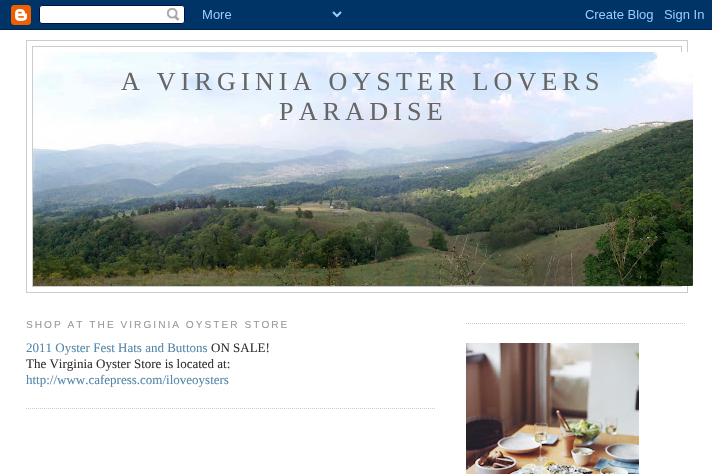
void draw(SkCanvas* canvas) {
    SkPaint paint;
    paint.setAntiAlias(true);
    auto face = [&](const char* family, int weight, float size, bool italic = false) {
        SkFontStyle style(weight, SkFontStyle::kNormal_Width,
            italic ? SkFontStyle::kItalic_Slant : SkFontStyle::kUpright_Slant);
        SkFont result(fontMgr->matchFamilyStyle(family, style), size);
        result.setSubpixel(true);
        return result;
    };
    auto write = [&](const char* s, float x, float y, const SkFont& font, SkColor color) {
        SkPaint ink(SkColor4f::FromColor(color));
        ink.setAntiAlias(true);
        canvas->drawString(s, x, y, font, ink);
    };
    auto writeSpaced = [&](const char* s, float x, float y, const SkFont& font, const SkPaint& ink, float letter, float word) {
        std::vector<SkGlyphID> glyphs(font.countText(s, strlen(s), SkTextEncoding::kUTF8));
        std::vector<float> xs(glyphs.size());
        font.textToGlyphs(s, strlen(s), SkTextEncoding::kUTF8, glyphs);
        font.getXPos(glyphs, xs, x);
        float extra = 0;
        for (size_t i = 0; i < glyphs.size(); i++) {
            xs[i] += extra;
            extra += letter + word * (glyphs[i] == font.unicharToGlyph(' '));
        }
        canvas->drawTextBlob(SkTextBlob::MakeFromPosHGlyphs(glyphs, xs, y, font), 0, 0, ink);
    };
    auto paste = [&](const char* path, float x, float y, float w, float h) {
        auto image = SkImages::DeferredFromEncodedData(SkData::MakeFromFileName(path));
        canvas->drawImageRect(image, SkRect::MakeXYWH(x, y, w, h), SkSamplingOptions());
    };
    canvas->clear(SK_ColorWHITE);
    paste("pic1.png", 0, 0, 712, 30);
    paint.setStyle(SkPaint::kStroke_Style);
    paint.setStrokeWidth(1);
    paint.setColor(SkColorSetRGB(204, 204, 204));
    canvas->drawRect(SkRect::MakeXYWH(26.5f, 40.5f, 661, 252), paint);
    canvas->drawRect(SkRect::MakeXYWH(32.5f, 46.5f, 649, 240), paint);
    paste("pic2.png", 33, 52, 660, 234);
    auto kFont1 = face("Liberation Serif", 400, 26);
    paint.setStyle(SkPaint::kFill_Style);
    paint.setColor(SkColorSetRGB(102, 102, 102));
    writeSpaced("A VIRGINIA OYSTER LOVERS", 121, 90, kFont1, paint, 5.2f, 0);
    writeSpaced("PARADISE", 279, 120, kFont1, paint, 5.2f, 0);
    paint.setStyle(SkPaint::kStroke_Style);
    paint.setColor(SkColorSetRGB(204, 204, 204));
    paint.setPathEffect(SkDashPathEffect::Make({{1, 1}}, 0));
    canvas->drawPath(SkPathBuilder().moveTo(26, 408.5f).lineTo(436, 408.5f).detach(), paint);
    paint.setPathEffect(nullptr);
    auto kFont2 = face("Liberation Sans", 400, 10.15f);
    paint.setStyle(SkPaint::kFill_Style);
    paint.setColor(SkColorSetRGB(153, 153, 153));
    writeSpaced("SHOP AT THE VIRGINIA OYSTER STORE", 26, 328, kFont2, paint, 2, 0);
    auto kFont3 = face("Liberation Serif", 400, 13);
    write("2011 Oyster Fest Hats and Buttons", 26, 352, kFont3, SkColorSetRGB(85, 136, 170));
    write("ON SALE!", 211, 352, kFont3, SkColorSetRGB(51, 51, 51));
    write("The Virginia Oyster Store is located at:", 26, 368, kFont3, SkColorSetRGB(51, 51, 51));
    write("http://www.cafepress.com/iloveoysters", 26, 384, kFont3, SkColorSetRGB(85, 136, 170));
    paint.setStyle(SkPaint::kStroke_Style);
    paint.setColor(SkColorSetRGB(204, 204, 204));
    paint.setPathEffect(SkDashPathEffect::Make({{1, 1}}, 0));
    canvas->drawPath(SkPathBuilder().moveTo(466, 323.5f).lineTo(686, 323.5f).detach(), paint);
    paint.setPathEffect(nullptr);
    paste("pic3.png", 466, 343, 173, 131);
}
